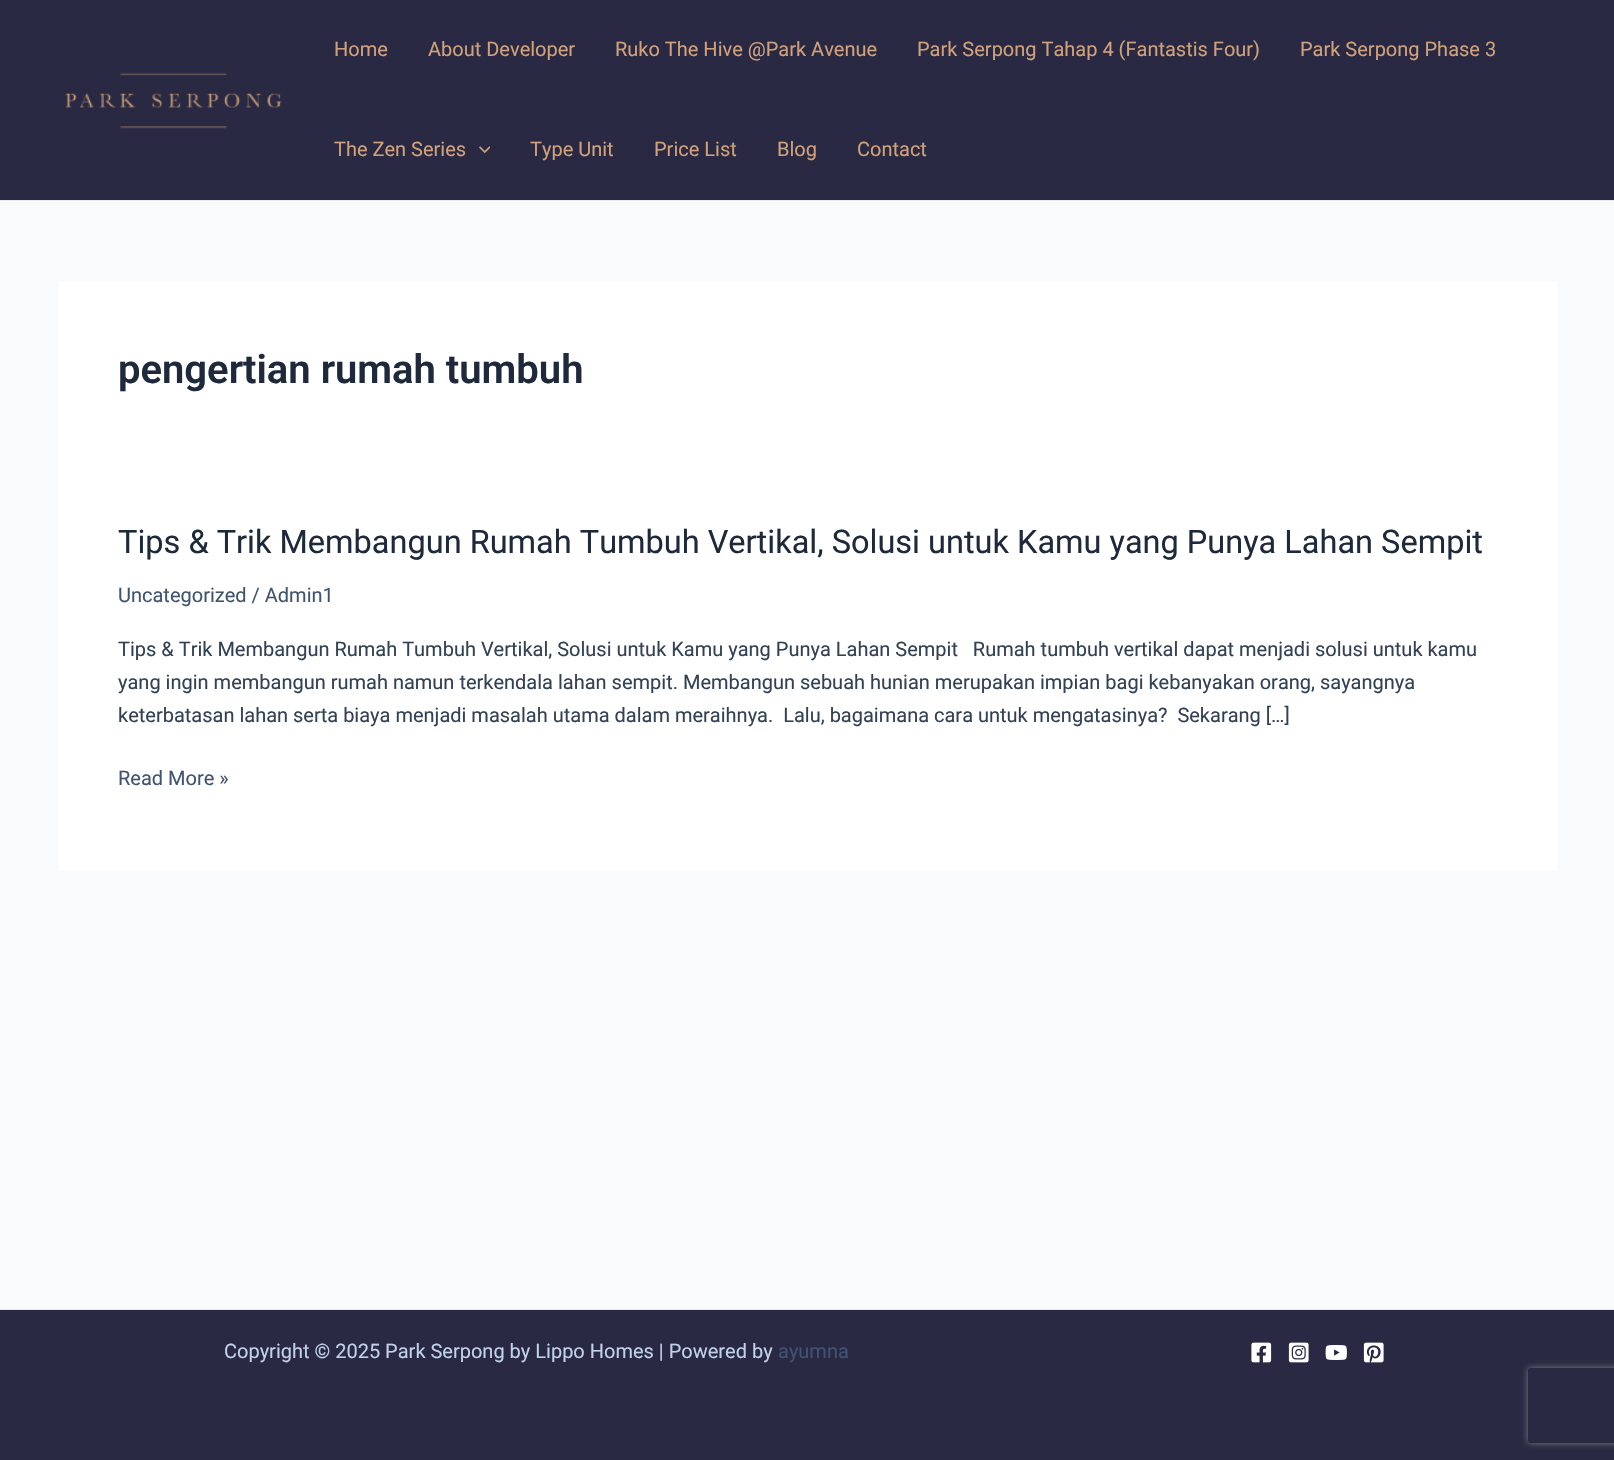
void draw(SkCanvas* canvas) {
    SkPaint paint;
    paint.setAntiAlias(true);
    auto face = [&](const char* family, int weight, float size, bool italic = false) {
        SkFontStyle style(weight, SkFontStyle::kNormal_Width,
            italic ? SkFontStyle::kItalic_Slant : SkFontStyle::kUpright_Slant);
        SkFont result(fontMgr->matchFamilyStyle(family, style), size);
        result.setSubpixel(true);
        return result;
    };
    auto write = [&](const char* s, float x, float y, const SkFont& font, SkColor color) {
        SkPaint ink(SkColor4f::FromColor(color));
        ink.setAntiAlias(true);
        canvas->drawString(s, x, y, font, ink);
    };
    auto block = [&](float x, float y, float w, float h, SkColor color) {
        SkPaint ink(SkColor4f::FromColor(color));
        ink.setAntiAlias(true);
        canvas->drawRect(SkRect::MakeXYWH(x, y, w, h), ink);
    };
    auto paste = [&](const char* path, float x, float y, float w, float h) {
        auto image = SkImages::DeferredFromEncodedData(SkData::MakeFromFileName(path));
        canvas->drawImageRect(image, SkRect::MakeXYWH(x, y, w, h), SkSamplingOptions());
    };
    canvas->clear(SkColorSetRGB(249, 250, 251));
    block(0, 0, 1614, 200, SkColorSetRGB(41, 41, 67));
    block(0, 200, 1614, 1, SkColorSetRGB(234, 234, 234));
    paste("pic1.png", 65, 72, 218, 57);
    auto kFont1 = face("Roboto", 400, 20);
    write("Home", 334, 56, kFont1, SkColorSetRGB(208, 161, 122));
    write("About Developer", 428, 56, kFont1, SkColorSetRGB(208, 161, 122));
    write("Ruko The Hive @Park Avenue", 615, 56, kFont1, SkColorSetRGB(208, 161, 122));
    write("Park Serpong Tahap 4 (Fantastis Four)", 917, 56, kFont1, SkColorSetRGB(208, 161, 122));
    write("Park Serpong Phase 3", 1300, 56, kFont1, SkColorSetRGB(208, 161, 122));
    write("The Zen Series", 334, 156, kFont1, SkColorSetRGB(208, 161, 122));
    paste("pic2.png", 479, 146, 11, 8);
    write("Type Unit", 530, 156, kFont1, SkColorSetRGB(208, 161, 122));
    write("Price List", 654, 156, kFont1, SkColorSetRGB(208, 161, 122));
    write("Blog", 777, 156, kFont1, SkColorSetRGB(208, 161, 122));
    write("Contact", 857, 156, kFont1, SkColorSetRGB(208, 161, 122));
    block(58, 281, 1500, 590, SK_ColorWHITE);
    auto kFont2 = face("Roboto", 600, 40);
    write("pengertian rumah tumbuh", 118, 383, kFont2, SkColorSetRGB(30, 41, 59));
    auto kFont3 = face("Roboto", 400, 32.5f);
    write("Tips & Trik Membangun Rumah Tumbuh Vertikal, Solusi untuk Kamu yang Punya Lahan Sempit", 118, 553, kFont3, SkColorSetRGB(30, 41, 59));
    write("Uncategorized / Admin1", 118, 602, kFont1, SkColorSetRGB(65, 84, 111));
    write("Tips & Trik Membangun Rumah Tumbuh Vertikal, Solusi untuk Kamu yang Punya Lahan Sempit   Rumah tumbuh vertikal dapat menjadi solusi untuk kamu", 118, 656, kFont1, SkColorSetRGB(51, 65, 85));
    write("yang ingin membangun rumah namun terkendala lahan sempit. Membangun sebuah hunian merupakan impian bagi kebanyakan orang, sayangnya", 118, 689, kFont1, SkColorSetRGB(51, 65, 85));
    write("keterbatasan lahan serta biaya menjadi masalah utama dalam meraihnya.  Lalu, bagaimana cara untuk mengatasinya?  Sekarang […]", 118, 722, kFont1, SkColorSetRGB(51, 65, 85));
    write("Read More »", 118, 785, kFont1, SkColorSetRGB(65, 84, 111));
    block(0, 1310, 1614, 150, SkColorSetRGB(41, 41, 67));
    block(0, 1309, 1614, 1, SkColorSetRGB(226, 232, 240));
    write("Copyright © 2025 Park Serpong by Lippo Homes | Powered by", 224, 1358, kFont1, SkColorSetRGB(193, 209, 231));
    write("ayumna", 778, 1358, kFont1, SkColorSetRGB(65, 84, 111));
    paste("pic3.png", 1251, 1342, 21, 21);
    paste("pic4.png", 1288, 1342, 21, 21);
    paste("pic5.png", 1325, 1345, 22, 15);
    paste("pic6.png", 1363, 1342, 21, 21);
    canvas->save();
    canvas->clipPath(SkPathBuilder(SkPathFillType::kEvenOdd).moveTo(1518, 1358).lineTo(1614, 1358).lineTo(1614, 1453).lineTo(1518, 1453).close().moveTo(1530.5f, 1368).lineTo(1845.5f, 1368).cubicTo(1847, 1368, 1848, 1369, 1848, 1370.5f).lineTo(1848, 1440.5f).cubicTo(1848, 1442, 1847, 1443, 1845.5f, 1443).lineTo(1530.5f, 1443).cubicTo(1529, 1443, 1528, 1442, 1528, 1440.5f).lineTo(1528, 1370.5f).cubicTo(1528, 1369, 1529, 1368, 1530.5f, 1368).close().detach(), true);
    paint.setColor(SkColorSetRGB(128, 128, 128));
    paint.setMaskFilter(SkMaskFilter::MakeBlur(kNormal_SkBlurStyle, 3));
    canvas->drawRoundRect(SkRect::MakeXYWH(1528, 1368, 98, 75), 2.5f, 2.5f, paint);
    paint.setMaskFilter(nullptr);
    canvas->restore();
}
